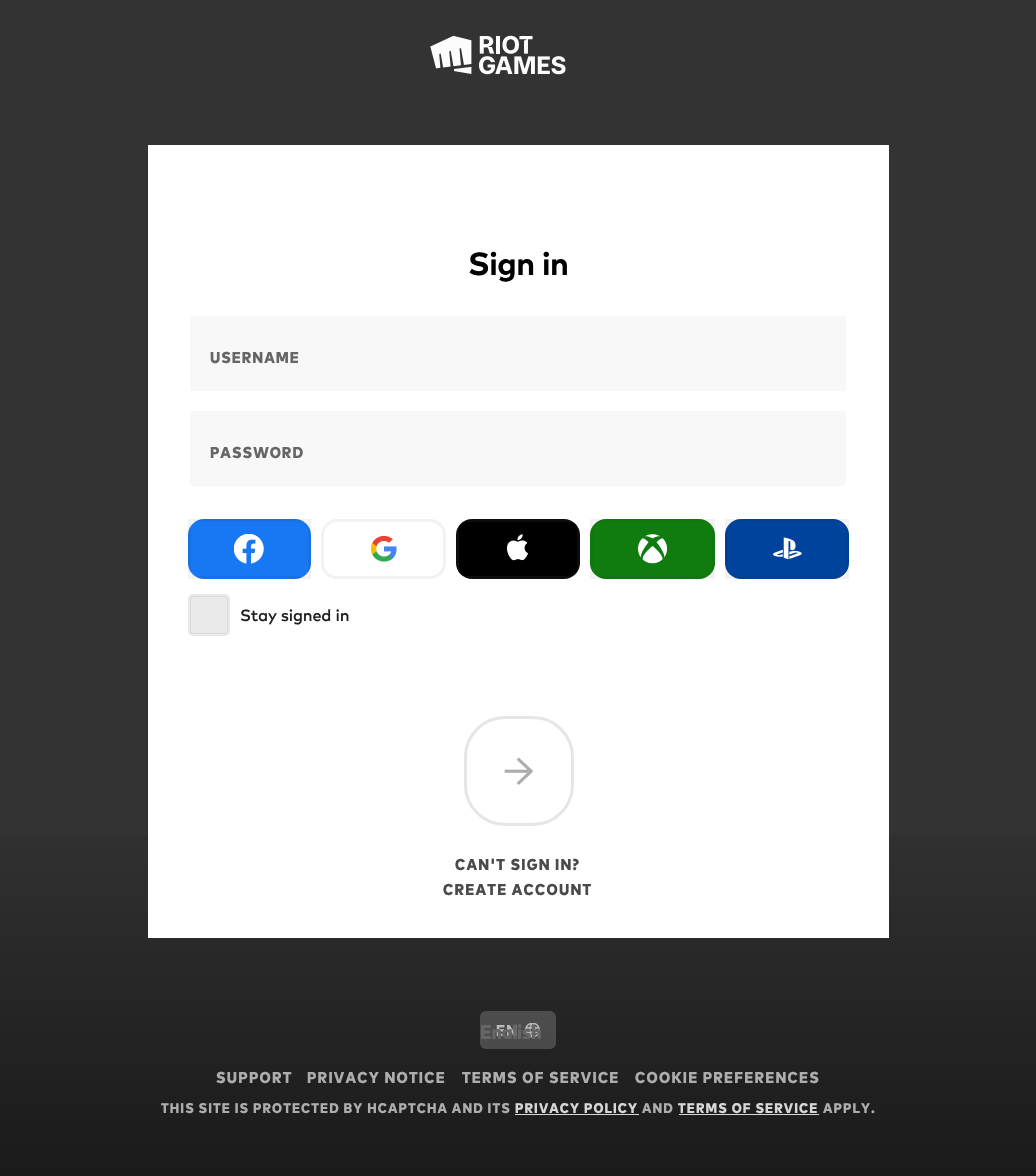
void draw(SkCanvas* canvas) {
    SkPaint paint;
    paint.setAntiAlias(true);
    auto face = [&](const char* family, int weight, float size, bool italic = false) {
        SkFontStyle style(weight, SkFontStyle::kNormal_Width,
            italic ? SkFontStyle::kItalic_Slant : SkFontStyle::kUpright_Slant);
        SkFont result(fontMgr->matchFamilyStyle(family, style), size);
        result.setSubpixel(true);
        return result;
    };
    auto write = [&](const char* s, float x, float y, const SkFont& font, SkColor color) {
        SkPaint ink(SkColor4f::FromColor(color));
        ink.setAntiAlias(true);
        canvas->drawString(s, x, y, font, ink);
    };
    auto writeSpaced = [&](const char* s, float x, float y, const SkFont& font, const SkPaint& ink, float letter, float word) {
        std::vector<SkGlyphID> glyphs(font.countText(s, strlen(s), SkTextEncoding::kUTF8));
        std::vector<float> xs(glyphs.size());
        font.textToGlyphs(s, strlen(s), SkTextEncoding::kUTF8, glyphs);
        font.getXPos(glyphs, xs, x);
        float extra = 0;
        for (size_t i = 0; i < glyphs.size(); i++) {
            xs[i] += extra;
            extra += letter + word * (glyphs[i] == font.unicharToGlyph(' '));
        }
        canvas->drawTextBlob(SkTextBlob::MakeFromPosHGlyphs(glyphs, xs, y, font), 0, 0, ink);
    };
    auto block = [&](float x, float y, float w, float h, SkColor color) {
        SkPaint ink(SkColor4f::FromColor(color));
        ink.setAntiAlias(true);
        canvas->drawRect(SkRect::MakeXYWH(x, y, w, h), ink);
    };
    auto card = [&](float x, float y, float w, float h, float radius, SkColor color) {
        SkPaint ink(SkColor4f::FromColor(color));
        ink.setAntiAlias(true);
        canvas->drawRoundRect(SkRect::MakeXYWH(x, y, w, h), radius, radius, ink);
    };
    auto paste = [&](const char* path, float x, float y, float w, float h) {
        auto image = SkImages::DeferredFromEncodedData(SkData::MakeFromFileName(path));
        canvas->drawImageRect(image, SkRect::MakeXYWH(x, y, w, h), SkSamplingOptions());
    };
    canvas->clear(SkColorSetRGB(51, 51, 51));
    paste("pic1.png", 430, 35, 136, 40);
    {
        const SkColor colors[] = {SkColorSetRGB(26, 26, 26), SkColorSetRGB(51, 51, 51)};
        const float stops[] = {0, 1};
        const SkPoint ends[] = {{518, 1176}, {518, 797}};
        paint.setShader(SkGradientShader::MakeLinear(ends, colors, stops, 2, SkTileMode::kClamp));
        paint.setAlpha(255);
    }
    canvas->drawRect(SkRect::MakeXYWH(0, 835, 1036, 341), paint);
    block(148, 145, 741, 793, SK_ColorWHITE);
    auto kFont1 = face("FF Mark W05", 700, 32);
    paint.setShader(nullptr);
    paint.setColor(SK_ColorBLACK);
    writeSpaced("Sign in", 468, 275, kFont1, paint, -0.5f, 0);
    card(190, 316, 656, 75, 2.5f, SkColorSetRGB(248, 248, 248));
    auto kFont2 = face("FF Mark W05", 900, 15.75f);
    paint.setColor(SkColorSetRGB(102, 102, 102));
    writeSpaced("USERNAME", 210, 363, kFont2, paint, 1, 0);
    card(190, 411, 656, 75, 2.5f, SkColorSetRGB(248, 248, 248));
    writeSpaced("PASSWORD", 210, 458, kFont2, paint, 1, 0);
    card(188, 519, 123, 60, 16, SkColorSetRGB(24, 119, 242));
    paint.setStyle(SkPaint::kStroke_Style);
    paint.setStrokeWidth(3);
    paint.setColor(SkColorSetARGB(13, 0, 0, 0));
    canvas->drawRect(SkRect::MakeXYWH(189.5f, 520.5f, 120, 57), paint);
    paste("pic2.png", 234, 534, 30, 30);
    paint.setColor(SkColorSetRGB(242, 242, 242));
    canvas->drawRoundRect(SkRect::MakeXYWH(322.5f, 520.5f, 122, 57), 14.5f, 14.5f, paint);
    paste("pic3.png", 370, 535, 27, 27);
    card(456, 519, 124, 60, 16, SK_ColorBLACK);
    paint.setColor(SkColorSetARGB(13, 255, 255, 255));
    canvas->drawRect(SkRect::MakeXYWH(457.5f, 520.5f, 121, 57), paint);
    paste("pic4.png", 506, 534, 22, 27);
    card(590, 519, 125, 60, 16, SkColorSetRGB(16, 124, 16));
    paint.setColor(SkColorSetARGB(13, 0, 0, 0));
    canvas->drawRect(SkRect::MakeXYWH(591.5f, 520.5f, 122, 57), paint);
    paste("pic5.png", 638, 534, 30, 30);
    card(725, 519, 124, 60, 16, SkColorSetRGB(0, 67, 156));
    canvas->drawRect(SkRect::MakeXYWH(726.5f, 520.5f, 121, 57), paint);
    paste("pic6.png", 773, 537, 29, 23);
    card(190, 596, 38, 38, 2.5f, SkColorSetRGB(234, 234, 234));
    paint.setColor(SkColorSetARGB(77, 186, 186, 186));
    canvas->drawRoundRect(SkRect::MakeXYWH(189.5f, 595.5f, 39, 39), 3.5f, 3.5f, paint);
    auto kFont3 = face("FF Mark W05", 500, 16.25f);
    paint.setStyle(SkPaint::kFill_Style);
    paint.setColor(SkColorSetRGB(33, 30, 31));
    writeSpaced("Stay signed in", 240, 621, kFont3, paint, -0.2f, 0);
    paint.setStyle(SkPaint::kStroke_Style);
    paint.setColor(SkColorSetRGB(230, 230, 230));
    canvas->drawRoundRect(SkRect::MakeXYWH(465.5f, 717.5f, 107, 107), 39.5f, 39.5f, paint);
    paste("pic7.png", 504, 757, 29, 28);
    paint.setStyle(SkPaint::kFill_Style);
    paint.setColor(SkColorSetRGB(74, 74, 74));
    writeSpaced("CAN'T SIGN IN?", 455, 870, kFont2, paint, 1.25f, 0);
    writeSpaced("CREATE ACCOUNT", 443, 895, kFont2, paint, 1.25f, 0);
    paint.setColor(SkColorSetRGB(173, 173, 173));
    writeSpaced("EN", 496, 1036, kFont2, paint, 1.25f, 0);
    paste("pic8.png", 525, 1023, 15, 15);
    card(480, 1011, 76, 38, 6, SkColorSetARGB(51, 235, 235, 235));
    canvas->save();
    canvas->clipRect(SkRect::MakeXYWH(480, 1023, 76, 16));
    auto kFont4 = face("FF Mark W05", 900, 20);
    write("English", 480, 1039, kFont4, SkColorSetRGB(102, 102, 102));
    canvas->restore();
    writeSpaced("SUPPORT", 216, 1083, kFont2, paint, 1.25f, 0);
    writeSpaced("PRIVACY NOTICE", 307, 1083, kFont2, paint, 1.25f, 0);
    writeSpaced("TERMS OF SERVICE", 462, 1083, kFont2, paint, 1.25f, 0);
    writeSpaced("COOKIE PREFERENCES", 635, 1083, kFont2, paint, 1.25f, 0);
    auto kFont5 = face("FF Mark W05", 900, 14.05f);
    writeSpaced("THIS SITE IS PROTECTED BY HCAPTCHA AND ITS", 161, 1113, kFont5, paint, 1.1f, 0);
    paint.setColor(SkColorSetRGB(215, 215, 215));
    writeSpaced("PRIVACY POLICY", 515, 1113, kFont5, paint, 1.1f, 0);
    block(515, 1114, 124, 1, SkColorSetRGB(215, 215, 215));
    paint.setColor(SkColorSetRGB(173, 173, 173));
    writeSpaced("AND", 642, 1113, kFont5, paint, 1.1f, 0);
    paint.setColor(SkColorSetRGB(215, 215, 215));
    writeSpaced("TERMS OF SERVICE", 678, 1113, kFont5, paint, 1.1f, 0);
    block(679, 1114, 140, 1, SkColorSetRGB(215, 215, 215));
    paint.setColor(SkColorSetRGB(173, 173, 173));
    writeSpaced("APPLY.", 823, 1113, kFont5, paint, 1.1f, 0);
}
